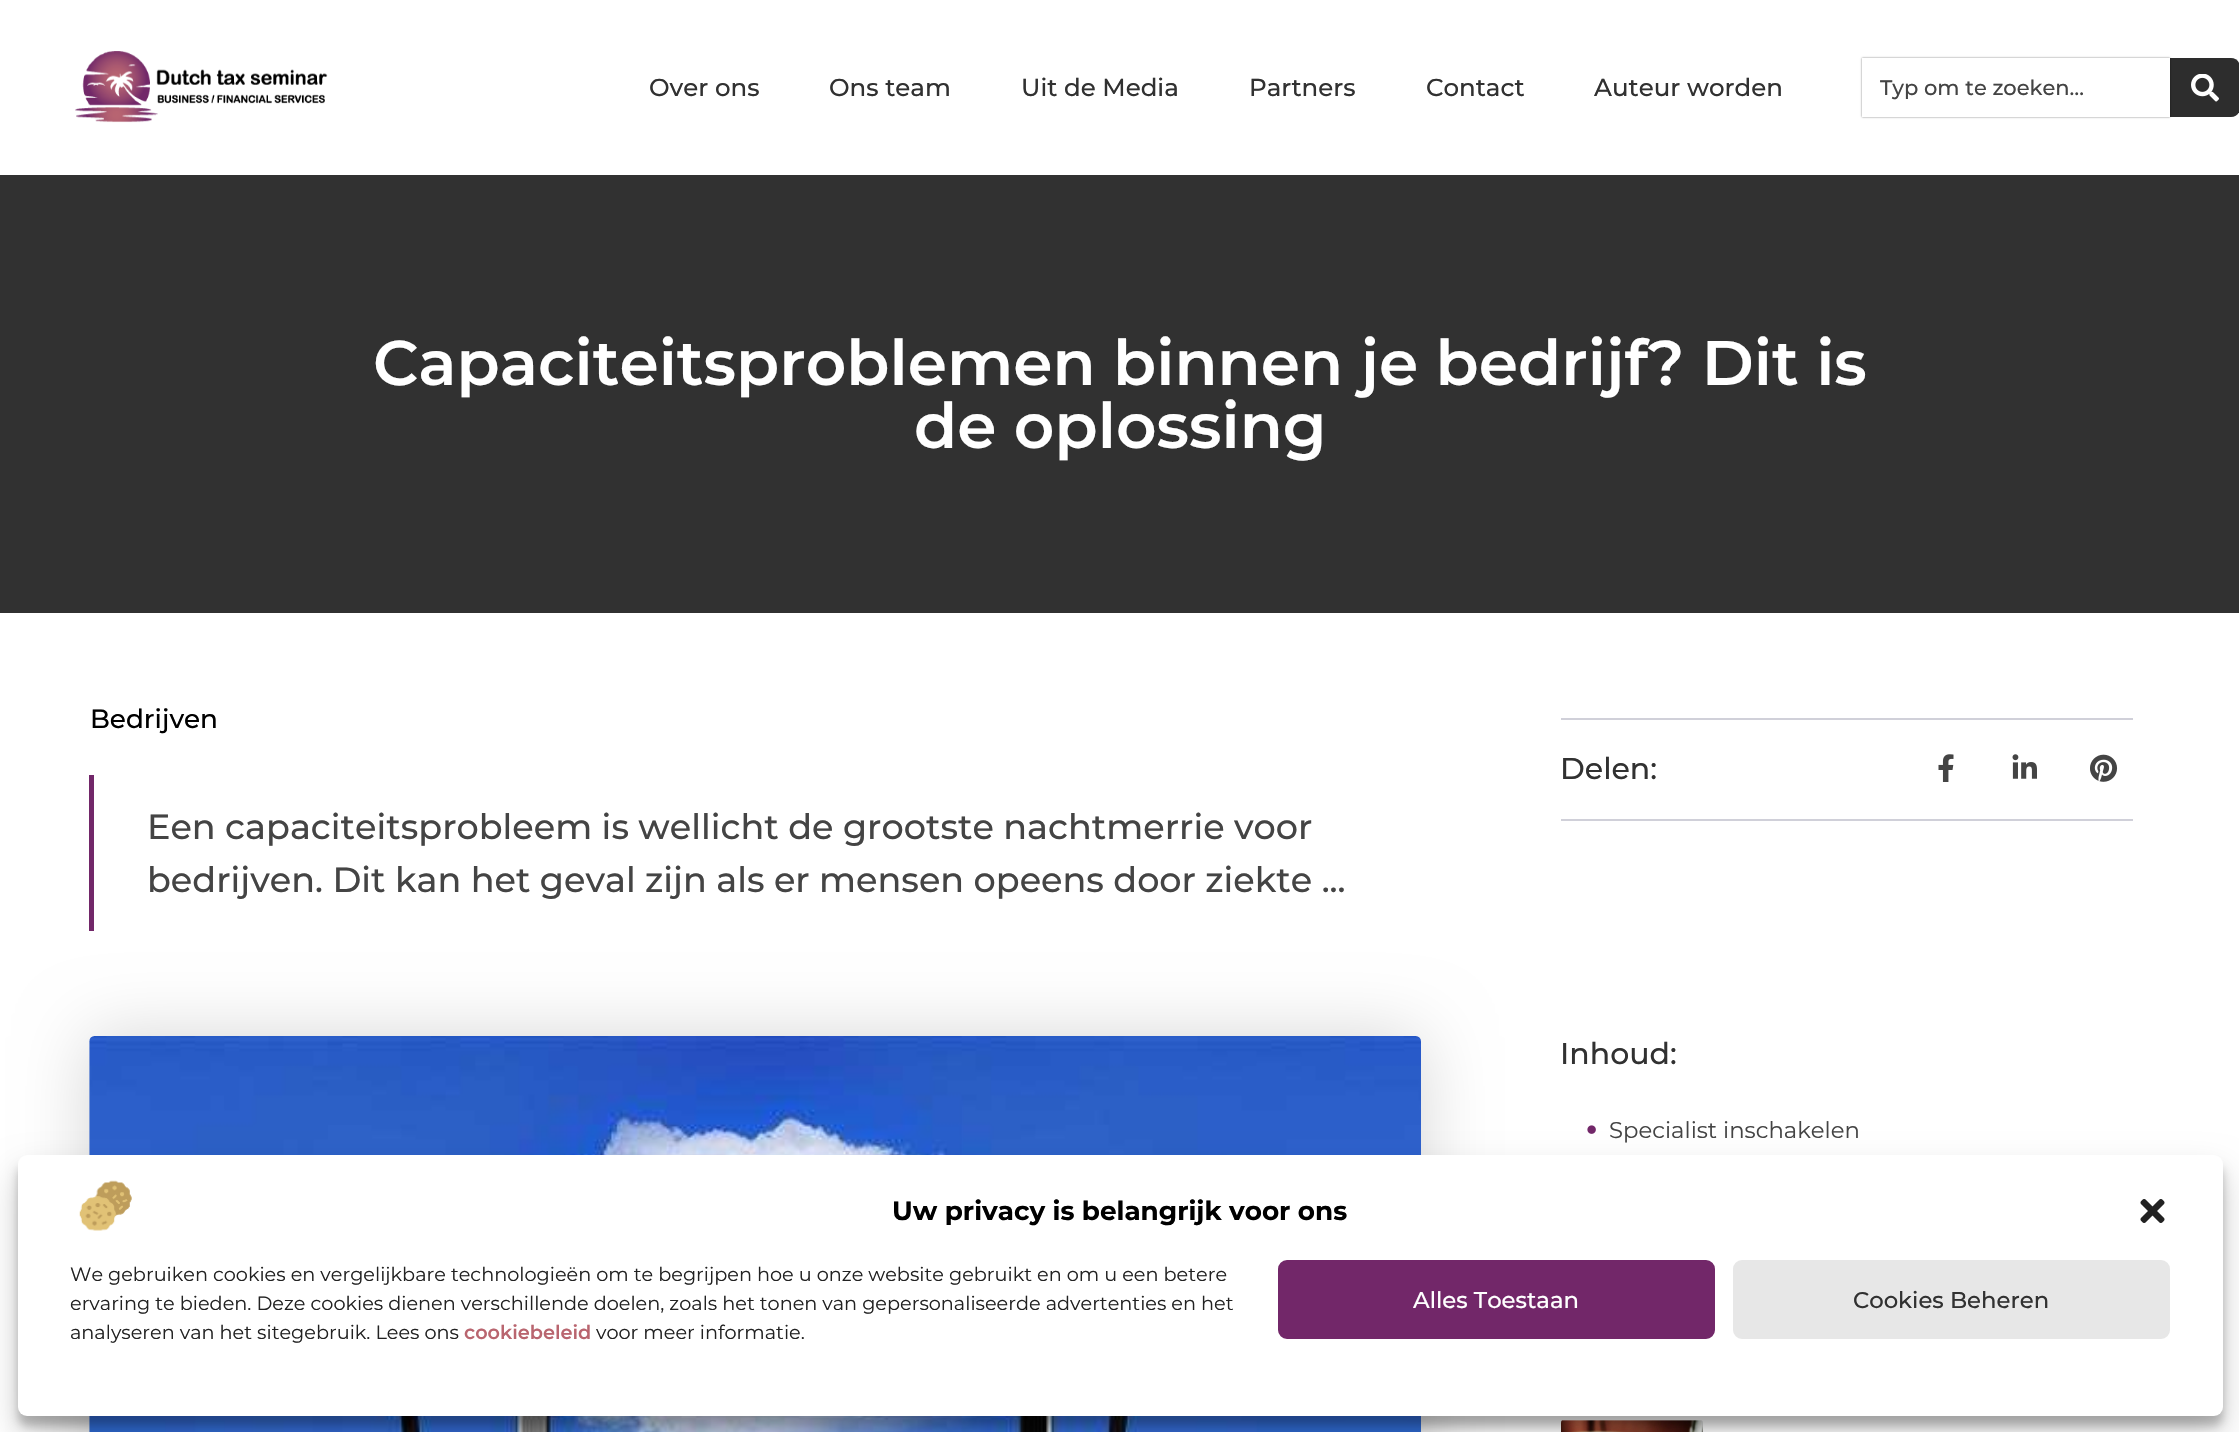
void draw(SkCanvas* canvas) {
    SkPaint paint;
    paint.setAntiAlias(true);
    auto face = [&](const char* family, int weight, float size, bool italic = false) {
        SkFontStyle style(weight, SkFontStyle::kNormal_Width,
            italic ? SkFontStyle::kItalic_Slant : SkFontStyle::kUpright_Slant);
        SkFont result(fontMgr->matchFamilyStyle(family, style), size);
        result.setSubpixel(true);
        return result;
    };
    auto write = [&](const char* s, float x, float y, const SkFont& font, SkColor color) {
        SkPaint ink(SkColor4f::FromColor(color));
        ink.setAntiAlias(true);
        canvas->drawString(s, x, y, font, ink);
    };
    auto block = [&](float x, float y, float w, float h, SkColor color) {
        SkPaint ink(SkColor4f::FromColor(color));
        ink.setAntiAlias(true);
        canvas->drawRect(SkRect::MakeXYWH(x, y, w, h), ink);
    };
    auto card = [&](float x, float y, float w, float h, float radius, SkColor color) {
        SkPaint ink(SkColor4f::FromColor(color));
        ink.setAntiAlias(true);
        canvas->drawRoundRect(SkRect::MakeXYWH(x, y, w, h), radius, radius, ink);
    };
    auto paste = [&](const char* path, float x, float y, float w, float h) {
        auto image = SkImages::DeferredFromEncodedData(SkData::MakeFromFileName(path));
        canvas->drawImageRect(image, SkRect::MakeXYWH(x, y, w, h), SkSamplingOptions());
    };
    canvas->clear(SK_ColorWHITE);
    paste("pic1.png", 75, 51, 253, 72);
    auto kFont1 = face("Montserrat", 500, 24.5f);
    write("Over ons", 649, 96, kFont1, SkColorSetRGB(49, 49, 49));
    write("Ons team", 829, 96, kFont1, SkColorSetRGB(49, 49, 49));
    write("Uit de Media", 1021, 96, kFont1, SkColorSetRGB(49, 49, 49));
    write("Partners", 1249, 96, kFont1, SkColorSetRGB(49, 49, 49));
    write("Contact", 1426, 96, kFont1, SkColorSetRGB(49, 49, 49));
    write("Auteur worden", 1594, 96, kFont1, SkColorSetRGB(49, 49, 49));
    paint.setColor(SkColorSetRGB(45, 45, 45));
    canvas->drawPath(SkPathBuilder().moveTo(2170, 58).lineTo(2231, 58).cubicTo(2236, 58, 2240, 62, 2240, 67).lineTo(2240, 108).cubicTo(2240, 113, 2236, 117, 2231, 117).lineTo(2170, 117).close().detach(), paint);
    canvas->save();
    canvas->clipPath(SkPathBuilder(SkPathFillType::kEvenOdd).moveTo(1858, 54).lineTo(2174, 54).lineTo(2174, 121).lineTo(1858, 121).close().moveTo(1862, 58).lineTo(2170, 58).lineTo(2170, 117).lineTo(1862, 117).close().detach(), true);
    paint.setColor(SkColorSetARGB(128, 0, 0, 0));
    paint.setMaskFilter(SkMaskFilter::MakeBlur(kNormal_SkBlurStyle, 1));
    canvas->drawRect(SkRect::MakeXYWH(1862, 58, 308, 59), paint);
    paint.setMaskFilter(nullptr);
    canvas->restore();
    auto kFont2 = face("Montserrat", 500, 21);
    write("Typ om te zoeken…", 1880, 95, kFont2, SkColorSetRGB(68, 68, 68));
    paste("pic2.png", 2191, 74, 28, 28);
    block(0, 175, 2239, 438, SkColorSetRGB(49, 49, 49));
    auto kFont3 = face("Montserrat", 600, 63);
    write("Capaciteitsproblemen binnen je bedrijf? Dit is", 373, 385, kFont3, SK_ColorWHITE);
    write("de oplossing", 914, 448, kFont3, SK_ColorWHITE);
    auto kFont4 = face("Montserrat", 500, 26.25f);
    write("Bedrijven", 90, 728, kFont4, SK_ColorBLACK);
    block(89, 775, 5, 156, SkColorSetRGB(114, 39, 105));
    auto kFont5 = face("Montserrat", 500, 35);
    write("Een capaciteitsprobleem is wellicht de grootste nachtmerrie voor", 147, 839, kFont5, SkColorSetRGB(68, 68, 68));
    write("bedrijven. Dit kan het geval zijn als er mensen opeens door ziekte ...", 147, 892, kFont5, SkColorSetRGB(68, 68, 68));
    paint.setColor(SkColorSetARGB(41, 0, 0, 0));
    paint.setMaskFilter(SkMaskFilter::MakeBlur(kNormal_SkBlurStyle, 35));
    canvas->drawRoundRect(SkRect::MakeXYWH(89, 1036, 1332, 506), 5, 5, paint);
    paint.setMaskFilter(nullptr);
    paste("pic3.png", 89, 1036, 1332, 396);
    block(1561, 718, 572, 2, SkColorSetRGB(208, 208, 217));
    block(1561, 819, 572, 2, SkColorSetRGB(208, 208, 217));
    auto kFont6 = face("Montserrat", 500, 30);
    write("Delen:", 1560, 779, kFont6, SkColorSetRGB(49, 49, 49));
    paste("pic4.png", 1938, 754, 16, 28);
    paste("pic5.png", 2012, 754, 25, 25);
    paste("pic6.png", 2090, 754, 28, 28);
    write("Inhoud:", 1560, 1064, kFont6, SkColorSetRGB(49, 49, 49));
    paste("pic7.png", 1587, 1125, 9, 9);
    auto kFont7 = face("Montserrat", 400, 22.75f);
    write("Specialist inschakelen", 1609, 1138, kFont7, SkColorSetRGB(68, 68, 68));
    paste("pic8.png", 1561, 1420, 142, 12);
    paint.setColor(SkColorSetARGB(59, 0, 0, 0));
    paint.setMaskFilter(SkMaskFilter::MakeBlur(kNormal_SkBlurStyle, 5));
    canvas->drawRoundRect(SkRect::MakeXYWH(18, 1166, 2205, 260), 9, 9, paint);
    paint.setMaskFilter(nullptr);
    paint.setColor(SkColorSetARGB(48, 0, 0, 0));
    paint.setMaskFilter(SkMaskFilter::MakeBlur(kNormal_SkBlurStyle, 17.5f));
    canvas->drawRoundRect(SkRect::MakeXYWH(18, 1173, 2205, 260), 9, 9, paint);
    paint.setMaskFilter(nullptr);
    card(18, 1155, 2205, 261, 9, SK_ColorWHITE);
    paste("pic9.png", 79, 1180, 53, 51);
    auto kFont8 = face("Montserrat", 700, 26.25f);
    write("Uw privacy is belangrijk voor ons", 892, 1220, kFont8, SK_ColorBLACK);
    paste("pic10.png", 2140, 1199, 25, 24);
    auto kFont9 = face("Montserrat", 400, 19.25f);
    write("We gebruiken cookies en vergelijkbare technologieën om te begrijpen hoe u onze website gebruikt en om u een betere", 70, 1281, kFont9, SkColorSetRGB(34, 34, 34));
    write("ervaring te bieden. Deze cookies dienen verschillende doelen, zoals het tonen van gepersonaliseerde advertenties en het", 70, 1310, kFont9, SkColorSetRGB(34, 34, 34));
    write("analyseren van het sitegebruik. Lees ons", 70, 1339, kFont9, SkColorSetRGB(34, 34, 34));
    auto kFont10 = face("Montserrat", 600, 19.25f);
    write("cookiebeleid", 464, 1339, kFont10, SkColorSetRGB(185, 101, 111));
    write("voor meer informatie.", 596, 1339, kFont9, SkColorSetRGB(34, 34, 34));
    paint.setColor(SkColorSetRGB(114, 39, 105));
    canvas->drawRoundRect(SkRect::MakeXYWH(1279, 1261, 435, 77), 8, 8, paint);
    paint.setStyle(SkPaint::kStroke_Style);
    paint.setStrokeWidth(2);
    canvas->drawRoundRect(SkRect::MakeXYWH(1279, 1261, 435, 77), 8, 8, paint);
    auto kFont11 = face("Montserrat", 500, 22.75f);
    write("Alles Toestaan", 1413, 1308, kFont11, SK_ColorWHITE);
    paint.setStyle(SkPaint::kFill_Style);
    paint.setColor(SkColorSetRGB(231, 231, 231));
    canvas->drawRoundRect(SkRect::MakeXYWH(1734, 1261, 435, 77), 8, 8, paint);
    paint.setStyle(SkPaint::kStroke_Style);
    canvas->drawRoundRect(SkRect::MakeXYWH(1734, 1261, 435, 77), 8, 8, paint);
    write("Cookies Beheren", 1853, 1308, kFont11, SkColorSetRGB(49, 49, 49));
}
